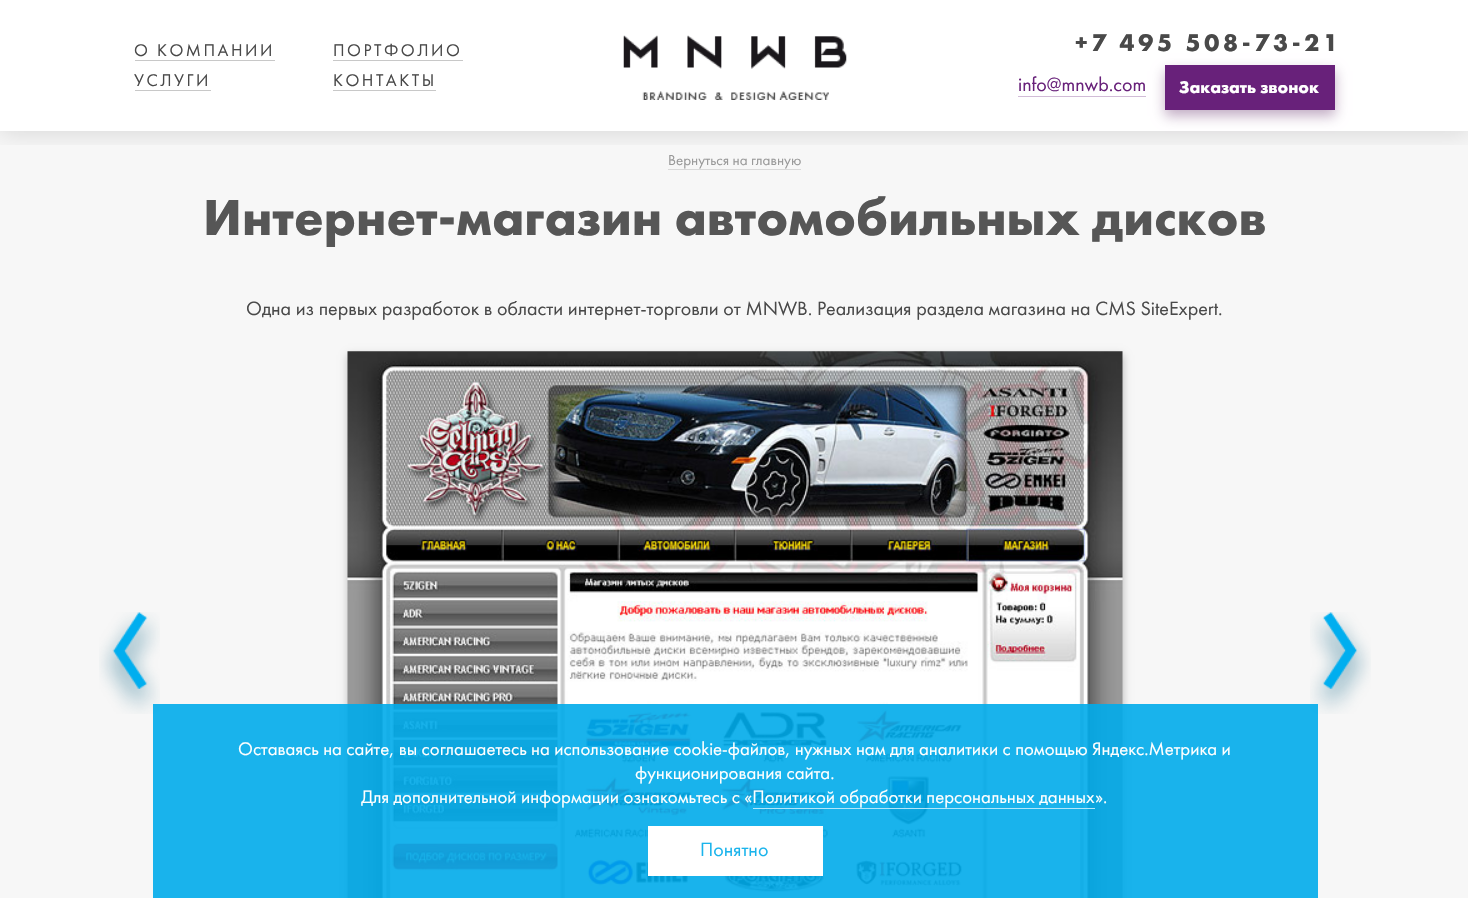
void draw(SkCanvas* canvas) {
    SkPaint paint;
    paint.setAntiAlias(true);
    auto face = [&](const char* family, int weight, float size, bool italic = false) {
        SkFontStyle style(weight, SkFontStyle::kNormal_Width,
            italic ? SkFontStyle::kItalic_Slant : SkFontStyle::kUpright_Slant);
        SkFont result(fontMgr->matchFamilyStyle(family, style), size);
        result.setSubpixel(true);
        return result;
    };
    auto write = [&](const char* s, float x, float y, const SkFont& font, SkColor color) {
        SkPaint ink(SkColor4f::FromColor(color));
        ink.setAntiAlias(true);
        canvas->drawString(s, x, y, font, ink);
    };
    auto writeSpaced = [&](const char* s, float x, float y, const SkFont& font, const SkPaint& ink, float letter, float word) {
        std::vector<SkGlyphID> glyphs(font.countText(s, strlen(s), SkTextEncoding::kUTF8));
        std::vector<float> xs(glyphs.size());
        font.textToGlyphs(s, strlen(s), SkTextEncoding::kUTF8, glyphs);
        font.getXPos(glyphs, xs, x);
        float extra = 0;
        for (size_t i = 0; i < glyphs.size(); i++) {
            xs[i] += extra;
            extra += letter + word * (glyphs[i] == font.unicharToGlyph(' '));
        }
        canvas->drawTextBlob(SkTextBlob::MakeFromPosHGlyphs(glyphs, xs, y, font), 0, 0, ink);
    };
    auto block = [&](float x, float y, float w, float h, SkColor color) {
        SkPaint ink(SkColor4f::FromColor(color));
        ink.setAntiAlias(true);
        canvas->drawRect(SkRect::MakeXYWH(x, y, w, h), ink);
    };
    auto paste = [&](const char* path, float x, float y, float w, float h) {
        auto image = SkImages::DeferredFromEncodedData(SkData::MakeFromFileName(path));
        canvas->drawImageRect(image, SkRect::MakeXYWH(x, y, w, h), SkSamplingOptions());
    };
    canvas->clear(SK_ColorWHITE);
    block(0, 131, 1468, 767, SkColorSetRGB(247, 247, 247));
    block(668, 169, 133, 1, SkColorSetRGB(217, 217, 217));
    canvas->save();
    canvas->clipRect(SkRect::MakeXYWH(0, 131, 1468, 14));
    paint.setColor(SkColorSetARGB(38, 0, 0, 0));
    paint.setMaskFilter(SkMaskFilter::MakeBlur(kNormal_SkBlurStyle, 12.5f));
    canvas->drawRect(SkRect::MakeXYWH(0, 0, 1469, 131), paint);
    paint.setMaskFilter(nullptr);
    canvas->restore();
    auto kFont1 = face("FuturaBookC", 400, 17.5f);
    paint.setColor(SkColorSetRGB(73, 73, 73));
    writeSpaced("О КОМПАНИИ", 134, 56, kFont1, paint, 2.5f, 0);
    block(135, 60, 140, 1, SkColorSetRGB(200, 200, 200));
    writeSpaced("ПОРТФОЛИО", 333, 56, kFont1, paint, 2.5f, 0);
    block(333, 60, 130, 1, SkColorSetRGB(200, 200, 200));
    writeSpaced("УСЛУГИ", 134, 86, kFont1, paint, 2.5f, 0);
    block(135, 90, 76, 1, SkColorSetRGB(200, 200, 200));
    writeSpaced("КОНТАКТЫ", 333, 86, kFont1, paint, 2.5f, 0);
    block(333, 90, 103, 1, SkColorSetRGB(200, 200, 200));
    paste("pic1.png", 623, 35, 224, 65);
    auto kFont2 = face("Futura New", 700, 25);
    writeSpaced("+7 495 508-73-21", 1075, 51, kFont2, paint, 3.75f, 0);
    auto kFont3 = face("FuturaBookC", 400, 20);
    write("info@mnwb.com", 1018, 91, kFont3, SkColorSetRGB(104, 33, 122));
    block(1018, 96, 128, 1, SkColorSetRGB(209, 188, 215));
    paint.setColor(SkColorSetARGB(82, 64, 0, 73));
    paint.setMaskFilter(SkMaskFilter::MakeBlur(kNormal_SkBlurStyle, 6));
    canvas->drawRect(SkRect::MakeXYWH(1165, 71, 170, 45), paint);
    paint.setMaskFilter(nullptr);
    block(1165, 65, 170, 45, SkColorSetRGB(104, 33, 122));
    auto kFont4 = face("Futura New", 700, 17.5f);
    write("Заказать звонок", 1179, 93, kFont4, SK_ColorWHITE);
    auto kFont5 = face("FuturaBookC", 400, 15);
    write("Вернуться на главную", 668, 165, kFont5, SkColorSetRGB(153, 153, 153));
    auto kFont6 = face("Futura New", 700, 52.5f);
    write("Интернет-магазин автомобильных дисков", 203, 235, kFont6, SkColorSetRGB(86, 86, 86));
    write("Одна из первых разработок в области интернет-торговли от MNWB. Реализация раздела магазина на CMS SiteExpert.", 246, 315, kFont3, SkColorSetRGB(73, 73, 73));
    paint.setColor(SkColorSetARGB(66, 0, 0, 0));
    paint.setMaskFilter(SkMaskFilter::MakeBlur(kNormal_SkBlurStyle, 4));
    canvas->drawRect(SkRect::MakeXYWH(348, 355, 775, 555), paint);
    paint.setMaskFilter(nullptr);
    paste("pic2.png", 347, 351, 776, 547);
    paste("pic3.png", 99, 612, 61, 102);
    paste("pic4.png", 1310, 612, 61, 102);
    block(153, 704, 1165, 194, SkColorSetARGB(230, 0, 171, 234));
    auto kFont7 = face("FuturaBookC", 400, 18.75f);
    write("Оставаясь на сайте, вы соглашаетесь на использование cookie-файлов, нужных нам для аналитики с помощью Яндекс.Метрика и", 238, 755, kFont7, SK_ColorWHITE);
    write("функционирования сайта.", 635, 779, kFont7, SK_ColorWHITE);
    write("Для дополнительной информации ознакомьтесь с «Политикой обработки персональных данных", 361, 803, kFont7, SK_ColorWHITE);
    write("».", 1095, 803, kFont7, SK_ColorWHITE);
    block(753, 808, 342, 1, SkColorSetRGB(178, 231, 250));
    block(648, 826, 175, 50, SK_ColorWHITE);
    write("Понятно", 700, 856, kFont3, SkColorSetRGB(26, 180, 236));
}
